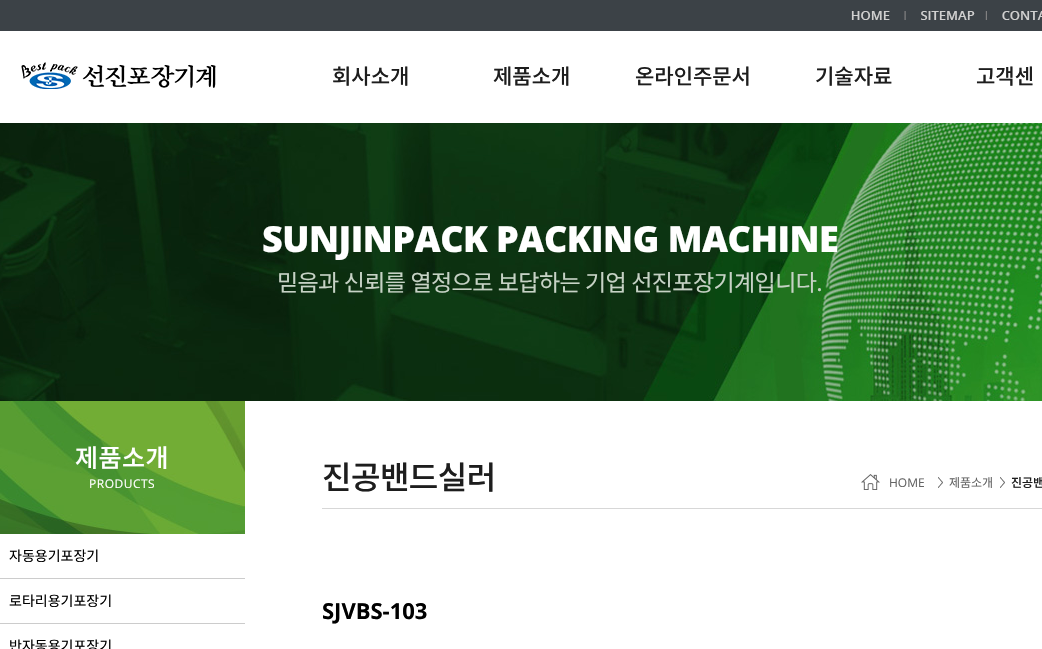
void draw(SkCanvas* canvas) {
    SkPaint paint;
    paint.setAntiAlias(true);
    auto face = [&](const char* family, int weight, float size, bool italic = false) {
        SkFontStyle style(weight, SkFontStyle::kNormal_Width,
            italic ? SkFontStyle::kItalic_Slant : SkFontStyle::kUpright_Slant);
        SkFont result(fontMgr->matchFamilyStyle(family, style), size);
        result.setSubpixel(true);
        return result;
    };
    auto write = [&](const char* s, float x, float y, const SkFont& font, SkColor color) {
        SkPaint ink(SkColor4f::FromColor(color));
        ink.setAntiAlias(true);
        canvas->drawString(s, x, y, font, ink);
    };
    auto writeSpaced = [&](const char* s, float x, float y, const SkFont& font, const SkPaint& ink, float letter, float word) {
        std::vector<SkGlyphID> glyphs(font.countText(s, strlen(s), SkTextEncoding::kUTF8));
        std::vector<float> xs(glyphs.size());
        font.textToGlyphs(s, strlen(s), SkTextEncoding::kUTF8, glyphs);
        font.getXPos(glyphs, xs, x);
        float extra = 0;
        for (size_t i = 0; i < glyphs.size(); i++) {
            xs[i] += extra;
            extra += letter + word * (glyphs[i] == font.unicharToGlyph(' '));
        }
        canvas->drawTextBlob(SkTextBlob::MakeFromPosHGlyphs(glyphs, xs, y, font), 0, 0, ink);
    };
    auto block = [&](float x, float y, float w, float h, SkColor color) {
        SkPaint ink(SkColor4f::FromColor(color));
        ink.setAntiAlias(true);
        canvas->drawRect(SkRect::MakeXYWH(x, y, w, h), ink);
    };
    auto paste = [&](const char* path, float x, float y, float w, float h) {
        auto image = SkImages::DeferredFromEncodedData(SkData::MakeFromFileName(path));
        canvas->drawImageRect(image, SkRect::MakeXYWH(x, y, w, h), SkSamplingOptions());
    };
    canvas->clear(SK_ColorWHITE);
    block(0, 0, 1042, 31, SkColorSetRGB(60, 66, 71));
    paste("pic1.png", 851, 11, 55, 9);
    paste("pic2.png", 921, 11, 66, 9);
    paste("pic3.png", 1002, 11, 40, 9);
    paste("pic4.png", 21, 62, 195, 27);
    auto kFont1 = face("Noto Sans KR", 500, 21);
    write("회사소개", 332, 84, kFont1, SkColorSetRGB(29, 29, 29));
    write("제품소개", 493, 84, kFont1, SkColorSetRGB(29, 29, 29));
    write("온라인주문서", 635, 84, kFont1, SkColorSetRGB(29, 29, 29));
    write("기술자료", 815, 84, kFont1, SkColorSetRGB(29, 29, 29));
    write("고객센", 976, 84, kFont1, SkColorSetRGB(29, 29, 29));
    paste("pic5.png", 0, 123, 1042, 278);
    auto kFont2 = face("Open Sans", 800, 36);
    paint.setColor(SK_ColorWHITE);
    writeSpaced("SUNJINPACK PACKING MACHINE", 262, 252, kFont2, paint, -0.5f, 0);
    auto kFont3 = face("Noto Sans KR", 400, 23);
    paint.setColor(SkColorSetRGB(198, 210, 197));
    writeSpaced("믿음과 신뢰를 열정으로 보답하는 기업 선진포장기계입니다.", 277, 291, kFont3, paint, -0.6f, 0.5f);
    paste("pic6.png", 0, 401, 245, 133);
    auto kFont4 = face("Noto Sans KR", 500, 25);
    paint.setColor(SK_ColorWHITE);
    writeSpaced("제품소개", 75, 467, kFont4, paint, 0.5f, 0);
    auto kFont5 = face("Open Sans", 400, 12);
    writeSpaced("PRODUCTS", 89, 488, kFont5, paint, 0.5f, 0);
    block(322, 508, 720, 1, SkColorSetRGB(215, 215, 215));
    auto kFont6 = face("Noto Sans KR", 500, 32);
    paint.setColor(SkColorSetRGB(29, 29, 29));
    writeSpaced("진공밴드실러", 322, 489, kFont6, paint, -0.5f, 0);
    paste("pic7.png", 861, 474, 19, 16);
    write("HOME", 889, 487, kFont5, SkColorSetRGB(100, 100, 100));
    paste("pic8.png", 938, 477, 5, 11);
    auto kFont7 = face("Noto Sans KR", 400, 12);
    write("제품소개", 949, 487, kFont7, SkColorSetRGB(100, 100, 100));
    paste("pic8.png", 1000, 477, 5, 11);
    auto kFont8 = face("Noto Sans KR", 500, 12);
    write("진공밴", 1011, 487, kFont8, SkColorSetRGB(29, 29, 29));
    block(0, 578, 245, 1, SkColorSetRGB(204, 204, 204));
    auto kFont9 = face("Noto Sans KR", 400, 14);
    write("자동용기포장기", 9, 561, kFont9, SK_ColorBLACK);
    block(0, 623, 245, 1, SkColorSetRGB(204, 204, 204));
    write("로타리용기포장기", 9, 606, kFont9, SK_ColorBLACK);
    write("반자동용기포장기", 9, 651, kFont9, SK_ColorBLACK);
    auto kFont10 = face("Open Sans", 700, 22);
    write("SJVBS-103", 322, 619, kFont10, SK_ColorBLACK);
}
